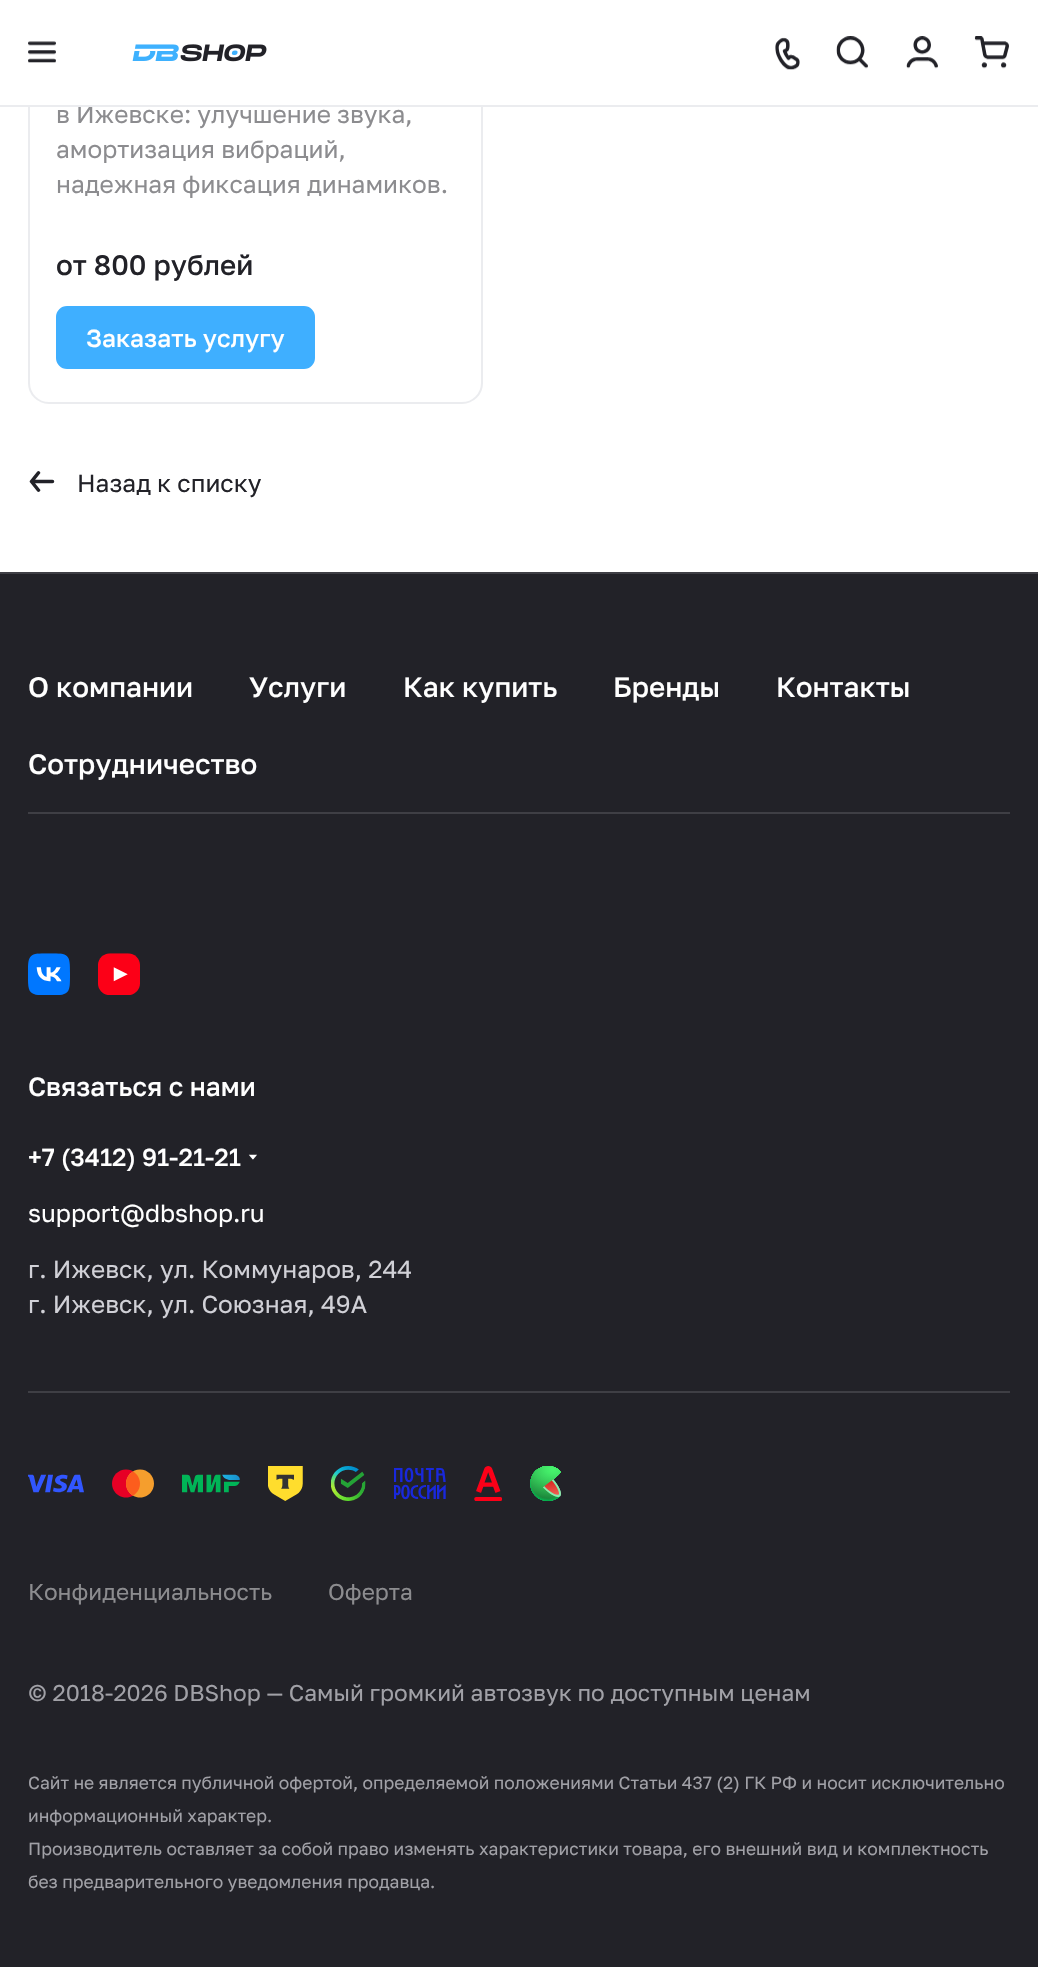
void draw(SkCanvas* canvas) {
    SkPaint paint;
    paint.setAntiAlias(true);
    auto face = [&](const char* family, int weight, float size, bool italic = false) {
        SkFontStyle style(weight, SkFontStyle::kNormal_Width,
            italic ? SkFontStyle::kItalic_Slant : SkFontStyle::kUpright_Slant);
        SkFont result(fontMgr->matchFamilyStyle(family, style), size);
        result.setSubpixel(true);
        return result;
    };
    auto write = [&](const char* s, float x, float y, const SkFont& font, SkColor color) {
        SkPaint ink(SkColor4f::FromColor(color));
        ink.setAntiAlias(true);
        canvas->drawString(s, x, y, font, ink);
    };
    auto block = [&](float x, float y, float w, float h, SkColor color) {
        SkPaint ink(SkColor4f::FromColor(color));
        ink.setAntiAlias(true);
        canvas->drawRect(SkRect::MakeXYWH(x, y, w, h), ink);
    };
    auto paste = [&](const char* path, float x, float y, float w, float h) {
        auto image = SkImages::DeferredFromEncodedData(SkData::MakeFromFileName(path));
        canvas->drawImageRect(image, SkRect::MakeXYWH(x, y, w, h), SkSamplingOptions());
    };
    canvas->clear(SK_ColorWHITE);
    paint.setStyle(SkPaint::kStroke_Style);
    paint.setStrokeWidth(2);
    paint.setColor(SkColorSetRGB(235, 236, 239));
    canvas->drawRoundRect(SkRect::MakeXYWH(29, -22, 453, 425), 20, 20, paint);
    block(28, 0, 455, 105, SK_ColorWHITE);
    auto kFont1 = face("Golos Text", 400, 24.5f);
    write("в Ижевске: улучшение звука,", 56, 123, kFont1, SkColorSetRGB(140, 140, 143));
    block(0, 105, 1038, 2, SkColorSetRGB(235, 236, 239));
    paste("pic1.png", 28, 41, 28, 22);
    paste("pic2.png", 132, 44, 135, 18);
    paste("pic3.png", 775, 37, 25, 33);
    paste("pic4.png", 836, 36, 32, 33);
    paste("pic5.png", 906, 36, 32, 33);
    paste("pic6.png", 974, 36, 35, 33);
    write("амортизация вибраций,", 56, 158, kFont1, SkColorSetRGB(140, 140, 143));
    write("надежная фиксация динамиков.", 56, 193, kFont1, SkColorSetRGB(140, 140, 143));
    auto kFont2 = face("Golos Text", 500, 28);
    write("от 800 рублей", 56, 275, kFont2, SkColorSetRGB(34, 34, 40));
    paint.setStyle(SkPaint::kFill_Style);
    paint.setColor(SkColorSetRGB(63, 175, 255));
    canvas->drawRoundRect(SkRect::MakeXYWH(57, 307, 257, 61), 10, 10, paint);
    paint.setStyle(SkPaint::kStroke_Style);
    canvas->drawRoundRect(SkRect::MakeXYWH(57, 307, 257, 61), 10, 10, paint);
    auto kFont3 = face("Golos Text", 500, 24.5f);
    write("Заказать услугу", 86, 347, kFont3, SK_ColorWHITE);
    paste("pic7.png", 29, 471, 26, 21);
    write("Назад к списку", 77, 492, kFont1, SkColorSetRGB(34, 34, 40));
    block(0, 574, 1038, 1393, SkColorSetRGB(34, 34, 40));
    block(0, 572, 1038, 2, SkColorSetRGB(63, 63, 69));
    block(28, 812, 982, 2, SkColorSetRGB(63, 63, 69));
    write("О компании", 28, 697, kFont2, SK_ColorWHITE);
    write("Услуги", 249, 697, kFont2, SK_ColorWHITE);
    write("Как купить", 403, 697, kFont2, SK_ColorWHITE);
    write("Бренды", 613, 697, kFont2, SK_ColorWHITE);
    write("Контакты", 776, 697, kFont2, SK_ColorWHITE);
    write("Сотрудничество", 28, 774, kFont2, SK_ColorWHITE);
    paste("pic8.png", 28, 953, 42, 42);
    paste("pic9.png", 98, 953, 42, 42);
    auto kFont4 = face("Golos Text", 500, 26.25f);
    write("Связаться с нами", 28, 1096, kFont4, SK_ColorWHITE);
    write("+7 (3412) 91-21-21", 28, 1166, kFont3, SK_ColorWHITE);
    paste("pic10.png", 248, 1154, 9, 6);
    write("support@dbshop.ru", 28, 1222, kFont1, SK_ColorWHITE);
    write("г. Ижевск, ул. Коммунаров, 244", 28, 1278, kFont1, SkColorSetRGB(209, 209, 215));
    write("г. Ижевск, ул. Союзная, 49А", 28, 1313, kFont1, SkColorSetRGB(209, 209, 215));
    block(28, 1391, 982, 2, SkColorSetRGB(63, 63, 69));
    paste("pic11.png", 28, 1474, 56, 19);
    paste("pic12.png", 112, 1469, 42, 29);
    paste("pic13.png", 182, 1474, 58, 19);
    paste("pic14.png", 268, 1466, 35, 35);
    paste("pic15.png", 331, 1466, 35, 35);
    paste("pic16.png", 394, 1467, 52, 33);
    paste("pic17.png", 474, 1466, 28, 35);
    paste("pic18.png", 530, 1466, 31, 35);
    auto kFont5 = face("Golos Text", 400, 22.75f);
    write("Конфиденциальность", 28, 1600, kFont5, SkColorSetRGB(140, 140, 143));
    write("Оферта", 328, 1600, kFont5, SkColorSetRGB(140, 140, 143));
    write("© 2018-2026 DBShop — Самый громкий автозвук по доступным ценам", 28, 1701, kFont5, SkColorSetRGB(161, 161, 167));
    auto kFont6 = face("Golos Text", 400, 17.5f);
    write("Сайт не является публичной офертой, определяемой положениями Статьи 437 (2) ГК РФ и носит исключительно", 28, 1789, kFont6, SkColorSetRGB(161, 161, 167));
    write("информационный характер.", 28, 1822, kFont6, SkColorSetRGB(161, 161, 167));
    write("Производитель оставляет за собой право изменять характеристики товара, его внешний вид и комплектность", 28, 1855, kFont6, SkColorSetRGB(161, 161, 167));
    write("без предварительного уведомления продавца.", 28, 1888, kFont6, SkColorSetRGB(161, 161, 167));
}
